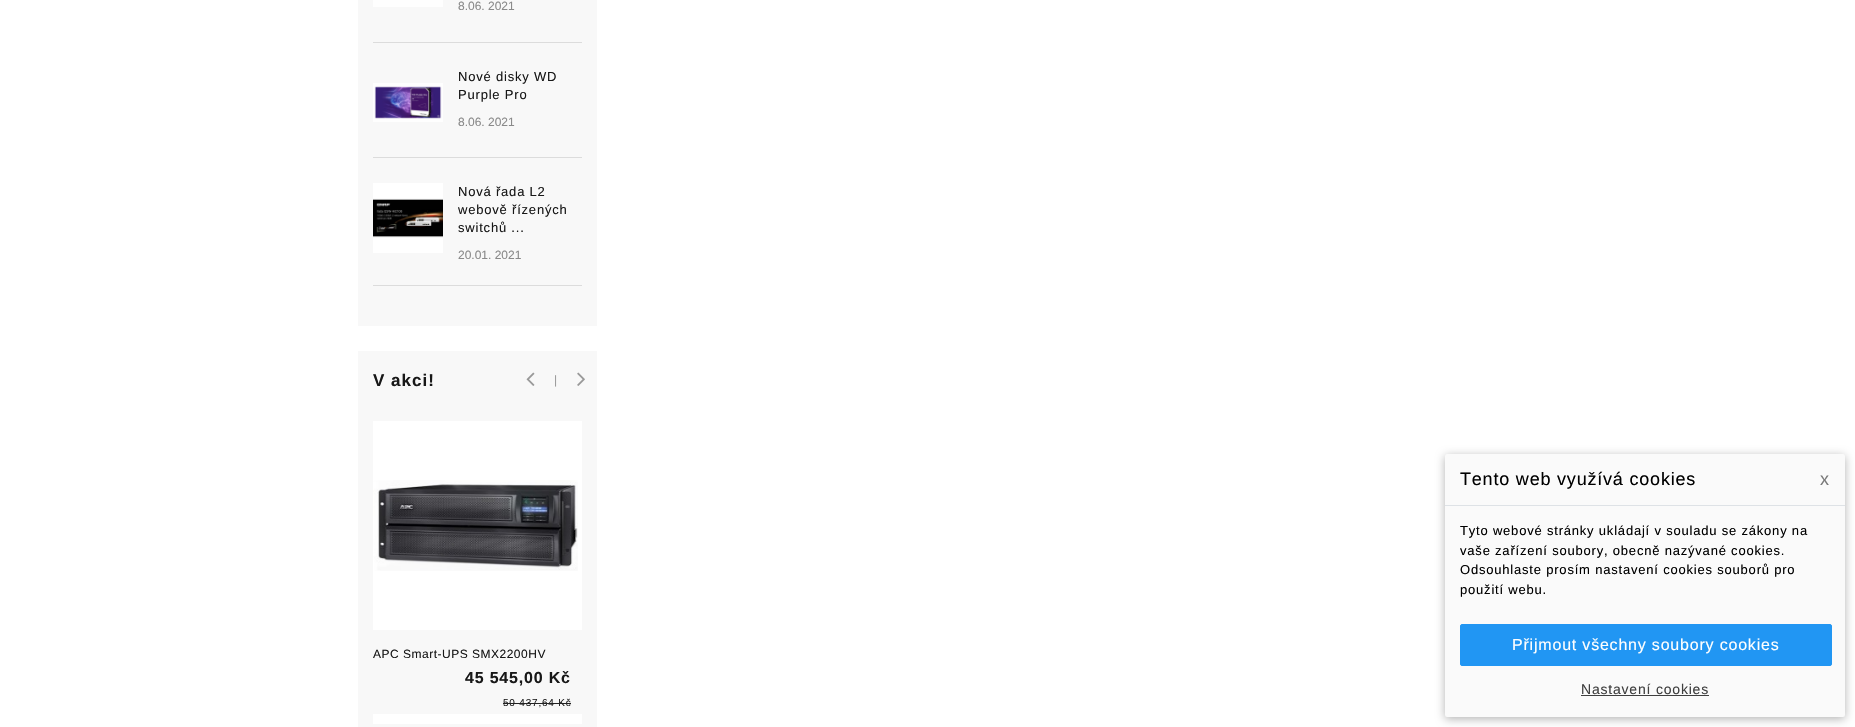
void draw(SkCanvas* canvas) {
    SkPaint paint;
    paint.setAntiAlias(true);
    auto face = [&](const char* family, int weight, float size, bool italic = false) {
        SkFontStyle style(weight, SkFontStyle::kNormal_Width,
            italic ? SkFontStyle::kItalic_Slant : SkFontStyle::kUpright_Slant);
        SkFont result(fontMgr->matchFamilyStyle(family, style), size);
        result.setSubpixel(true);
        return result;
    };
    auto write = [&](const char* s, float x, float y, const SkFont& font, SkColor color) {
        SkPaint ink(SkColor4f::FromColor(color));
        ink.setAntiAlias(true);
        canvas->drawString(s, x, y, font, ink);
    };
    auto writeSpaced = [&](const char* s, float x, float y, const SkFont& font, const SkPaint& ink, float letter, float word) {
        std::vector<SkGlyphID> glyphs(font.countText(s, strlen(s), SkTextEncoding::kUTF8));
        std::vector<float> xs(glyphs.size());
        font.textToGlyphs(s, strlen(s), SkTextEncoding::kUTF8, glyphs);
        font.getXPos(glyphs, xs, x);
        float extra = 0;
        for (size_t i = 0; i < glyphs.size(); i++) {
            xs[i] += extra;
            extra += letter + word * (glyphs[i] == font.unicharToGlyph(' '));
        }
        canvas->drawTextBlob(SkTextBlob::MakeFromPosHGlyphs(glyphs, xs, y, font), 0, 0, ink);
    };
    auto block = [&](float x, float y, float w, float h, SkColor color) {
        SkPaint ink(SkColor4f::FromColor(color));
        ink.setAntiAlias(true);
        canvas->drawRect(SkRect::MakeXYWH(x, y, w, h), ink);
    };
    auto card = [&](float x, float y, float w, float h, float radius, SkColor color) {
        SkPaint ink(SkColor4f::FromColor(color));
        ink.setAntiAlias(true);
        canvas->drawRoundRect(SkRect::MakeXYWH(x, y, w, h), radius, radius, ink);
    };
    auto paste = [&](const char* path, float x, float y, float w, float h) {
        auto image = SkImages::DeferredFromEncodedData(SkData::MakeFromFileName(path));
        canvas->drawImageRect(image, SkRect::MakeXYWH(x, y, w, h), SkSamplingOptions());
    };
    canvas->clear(SK_ColorWHITE);
    block(358, 0, 239, 326, SkColorSetRGB(248, 248, 248));
    block(373, 42, 209, 1, SkColorSetRGB(220, 220, 220));
    block(373, 0, 70, 7, SkColorSetRGB(254, 254, 254));
    auto kFont1 = face("Liberation Sans", 400, 12);
    write("8.06. 2021", 458, 10, kFont1, SkColorSetRGB(138, 138, 138));
    block(373, 157, 209, 1, SkColorSetRGB(220, 220, 220));
    paste("pic1.png", 373, 83, 70, 39);
    auto kFont2 = face("Liberation Sans", 400, 13);
    paint.setColor(SkColorSetRGB(24, 24, 24));
    writeSpaced("Nové disky WD", 458, 81, kFont2, paint, 0.8f, 0);
    writeSpaced("Purple Pro", 458, 99, kFont2, paint, 0.8f, 0);
    write("8.06. 2021", 458, 126, kFont1, SkColorSetRGB(138, 138, 138));
    block(373, 285, 209, 1, SkColorSetRGB(220, 220, 220));
    paste("pic2.png", 373, 183, 70, 70);
    writeSpaced("Nová řada L2", 458, 196, kFont2, paint, 0.8f, 0);
    writeSpaced("webově řízených", 458, 214, kFont2, paint, 0.8f, 0);
    writeSpaced("switchů ...", 458, 232, kFont2, paint, 0.8f, 0);
    write("20.01. 2021", 458, 259, kFont1, SkColorSetRGB(138, 138, 138));
    block(358, 351, 239, 55, SkColorSetRGB(248, 248, 248));
    auto kFont3 = face("Liberation Sans", 700, 17);
    writeSpaced("V akci!", 373, 386, kFont3, paint, 1, 0);
    paste("pic3.png", 526, 372, 9, 14);
    paint.setColor(SkColorSetRGB(153, 153, 153));
    writeSpaced("|", 554, 384, kFont1, paint, 0.8f, 0);
    paste("pic4.png", 577, 372, 8, 14);
    paint.setStyle(SkPaint::kStroke_Style);
    paint.setStrokeWidth(15);
    paint.setColor(SkColorSetRGB(248, 248, 248));
    canvas->drawRect(SkRect::MakeXYWH(365.5f, 413.5f, 224, 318), paint);
    paste("pic5.png", 373, 480, 205, 91);
    block(373, 630, 209, 84, SkColorSetRGB(248, 248, 248));
    paint.setStyle(SkPaint::kFill_Style);
    paint.setColor(SkColorSetRGB(24, 24, 24));
    writeSpaced("APC Smart-UPS SMX2200HV", 373, 658, kFont1, paint, 0.5f, 0);
    auto kFont4 = face("Liberation Sans", 700, 16);
    writeSpaced("45 545,00 Kč", 465, 683, kFont4, paint, 0.8f, 0);
    auto kFont5 = face("Liberation Sans", 400, 10);
    paint.setColor(SkColorSetRGB(34, 34, 34));
    writeSpaced("50 437,64 Kč", 503, 706, kFont5, paint, 0.8f, 0);
    block(503, 703, 68, 1, SkColorSetRGB(34, 34, 34));
    paint.setColor(SkColorSetARGB(77, 0, 0, 0));
    paint.setMaskFilter(SkMaskFilter::MakeBlur(kNormal_SkBlurStyle, 5));
    canvas->drawRoundRect(SkRect::MakeXYWH(1445, 456, 400, 263), 2, 2, paint);
    paint.setMaskFilter(nullptr);
    card(1445, 454, 400, 263, 2, SkColorSetRGB(250, 250, 250));
    block(1445, 505, 400, 1, SkColorSetRGB(222, 226, 230));
    auto kFont6 = face("Liberation Sans", 400, 18);
    paint.setColor(SK_ColorBLACK);
    writeSpaced("Tento web využívá cookies", 1460, 485, kFont6, paint, 0.8f, 0);
    paint.setColor(SkColorSetRGB(122, 122, 122));
    writeSpaced("x", 1820, 485, kFont6, paint, 0.8f, 0);
    paint.setColor(SK_ColorBLACK);
    writeSpaced("Tyto webové stránky ukládají v souladu se zákony na", 1460, 535, kFont2, paint, 0.8f, 0);
    writeSpaced("vaše zařízení soubory, obecně nazývané cookies.", 1460, 555, kFont2, paint, 0.8f, 0);
    writeSpaced("Odsouhlaste prosím nastavení cookies souborů pro", 1460, 574, kFont2, paint, 0.8f, 0);
    writeSpaced("použití webu.", 1460, 594, kFont2, paint, 0.8f, 0);
    paint.setColor(SkColorSetRGB(33, 150, 243));
    canvas->drawRoundRect(SkRect::MakeXYWH(1460.5f, 624.5f, 371, 41), 1.5f, 1.5f, paint);
    paint.setStyle(SkPaint::kStroke_Style);
    paint.setStrokeWidth(1);
    canvas->drawRoundRect(SkRect::MakeXYWH(1460.5f, 624.5f, 371, 41), 1.5f, 1.5f, paint);
    auto kFont7 = face("Liberation Sans", 400, 16);
    paint.setStyle(SkPaint::kFill_Style);
    paint.setColor(SK_ColorWHITE);
    writeSpaced("Přijmout všechny soubory cookies", 1512, 650, kFont7, paint, 0.8f, 0);
    auto kFont8 = face("Liberation Sans", 400, 14);
    paint.setColor(SkColorSetRGB(63, 63, 63));
    writeSpaced("Nastavení cookies", 1581, 694, kFont8, paint, 0.8f, 0);
    block(1581, 695, 128, 1, SkColorSetRGB(63, 63, 63));
}
